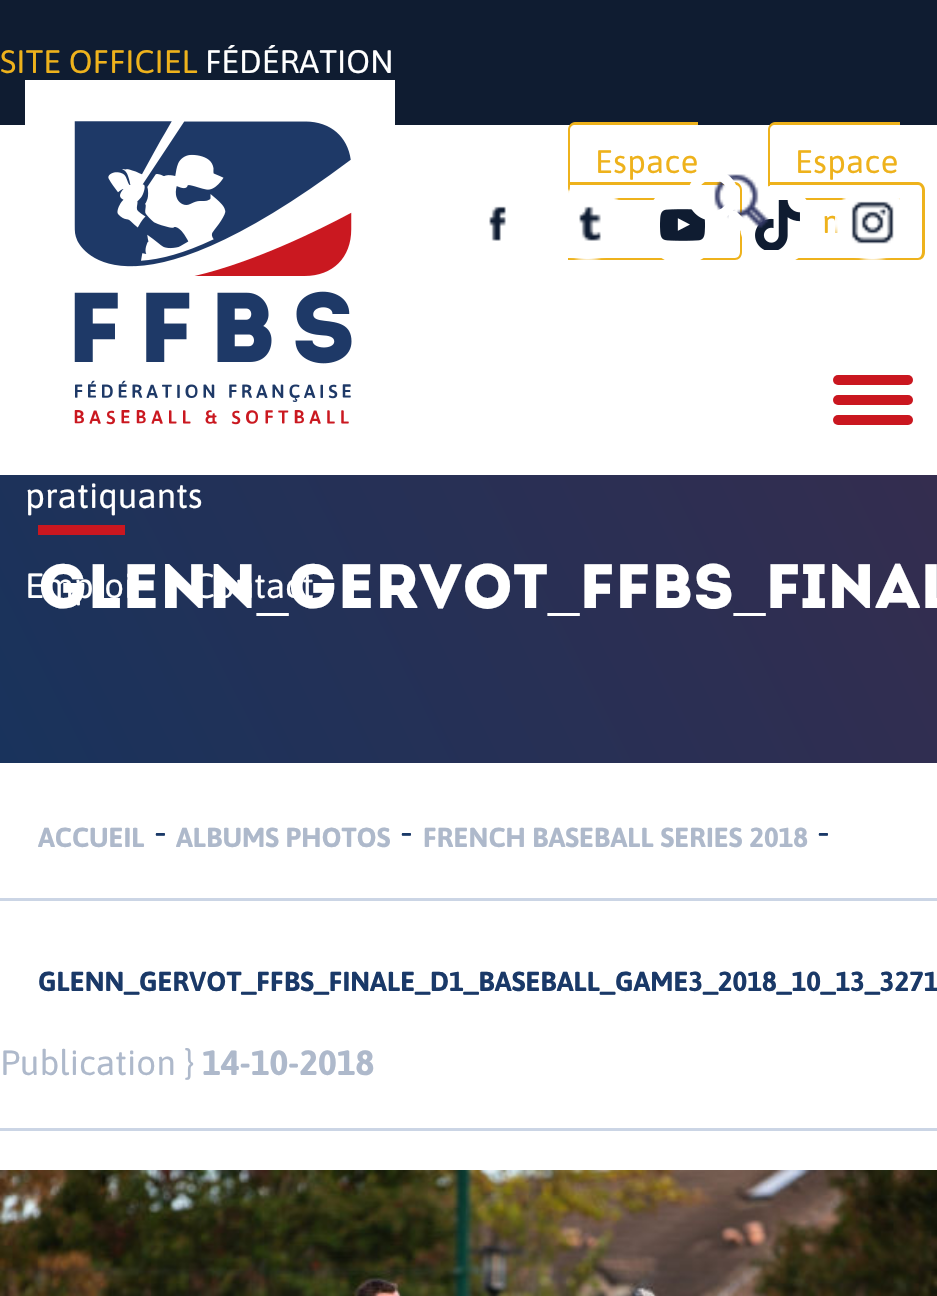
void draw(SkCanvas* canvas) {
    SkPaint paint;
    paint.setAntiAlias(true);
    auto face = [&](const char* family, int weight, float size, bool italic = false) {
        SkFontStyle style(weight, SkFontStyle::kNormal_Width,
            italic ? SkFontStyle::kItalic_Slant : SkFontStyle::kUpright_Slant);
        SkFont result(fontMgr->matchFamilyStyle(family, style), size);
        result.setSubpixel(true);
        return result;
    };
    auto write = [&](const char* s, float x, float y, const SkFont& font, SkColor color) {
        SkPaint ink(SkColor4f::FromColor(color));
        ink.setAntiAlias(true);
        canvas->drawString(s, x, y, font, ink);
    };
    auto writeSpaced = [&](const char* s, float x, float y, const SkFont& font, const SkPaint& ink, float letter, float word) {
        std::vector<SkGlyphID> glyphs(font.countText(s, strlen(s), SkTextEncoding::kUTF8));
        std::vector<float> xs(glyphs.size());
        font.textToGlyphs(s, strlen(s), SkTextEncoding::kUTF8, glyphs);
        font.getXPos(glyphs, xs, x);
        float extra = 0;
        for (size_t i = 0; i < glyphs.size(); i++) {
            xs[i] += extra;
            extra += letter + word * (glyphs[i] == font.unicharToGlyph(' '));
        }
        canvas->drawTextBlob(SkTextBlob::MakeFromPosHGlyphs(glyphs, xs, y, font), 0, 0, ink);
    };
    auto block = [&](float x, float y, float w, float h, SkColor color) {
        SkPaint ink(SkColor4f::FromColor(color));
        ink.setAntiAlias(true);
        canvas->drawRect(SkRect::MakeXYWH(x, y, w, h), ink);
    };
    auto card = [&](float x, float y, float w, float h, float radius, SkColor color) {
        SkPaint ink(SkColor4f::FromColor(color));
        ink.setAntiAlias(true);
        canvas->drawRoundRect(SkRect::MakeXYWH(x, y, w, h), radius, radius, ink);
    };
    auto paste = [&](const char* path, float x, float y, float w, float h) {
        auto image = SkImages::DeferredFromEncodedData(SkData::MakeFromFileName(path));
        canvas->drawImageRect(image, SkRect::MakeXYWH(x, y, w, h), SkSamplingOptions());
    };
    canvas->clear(SK_ColorWHITE);
    block(0, 0, 937, 125, SkColorSetRGB(15, 28, 49));
    auto kFont1 = face("Asap", 400, 32.5f);
    write("SITE OFFICIEL", 0, 73, kFont1, SkColorSetRGB(238, 178, 28));
    write("FÉDÉRATION", 205, 73, kFont1, SK_ColorWHITE);
    paint.setColor(SkColorSetRGB(238, 178, 28));
    canvas->drawPath(SkPathBuilder(SkPathFillType::kEvenOdd).moveTo(575, 122).lineTo(698, 122).lineTo(698, 200).lineTo(575, 200).cubicTo(571, 200, 568, 197, 568, 192).lineTo(568, 130).cubicTo(568, 126, 571, 122, 575, 122).close().moveTo(575, 125).lineTo(698, 125).lineTo(698, 198).lineTo(575, 198).cubicTo(572, 198, 570, 195, 570, 192).lineTo(570, 130).cubicTo(570, 127, 572, 125, 575, 125).close().detach(), paint);
    writeSpaced("Espace", 595, 173, kFont1, paint, 0.5f, 0);
    canvas->drawPath(SkPathBuilder(SkPathFillType::kEvenOdd).moveTo(568, 182).lineTo(735, 182).cubicTo(739, 182, 742, 186, 742, 190).lineTo(742, 252).cubicTo(742, 257, 739, 260, 735, 260).lineTo(568, 260).close().moveTo(568, 185).lineTo(735, 185).cubicTo(738, 185, 740, 187, 740, 190).lineTo(740, 252).cubicTo(740, 255, 738, 258, 735, 258).lineTo(568, 258).close().detach(), paint);
    canvas->drawPath(SkPathBuilder(SkPathFillType::kEvenOdd).moveTo(775, 122).lineTo(900, 122).lineTo(900, 200).lineTo(775, 200).cubicTo(771, 200, 768, 197, 768, 192).lineTo(768, 130).cubicTo(768, 126, 771, 122, 775, 122).close().moveTo(775, 125).lineTo(900, 125).lineTo(900, 198).lineTo(775, 198).cubicTo(772, 198, 770, 195, 770, 192).lineTo(770, 130).cubicTo(770, 127, 772, 125, 775, 125).close().detach(), paint);
    writeSpaced("Espace", 795, 173, kFont1, paint, 0.5f, 0);
    canvas->drawPath(SkPathBuilder(SkPathFillType::kEvenOdd).moveTo(768, 182).lineTo(918, 182).cubicTo(922, 182, 925, 186, 925, 190).lineTo(925, 252).cubicTo(925, 257, 922, 260, 918, 260).lineTo(768, 260).close().moveTo(768, 185).lineTo(918, 185).cubicTo(920, 185, 922, 187, 922, 190).lineTo(922, 252).cubicTo(922, 255, 920, 258, 918, 258).lineTo(768, 258).close().detach(), paint);
    writeSpaced("n", 822, 233, kFont1, paint, 0.5f, 0);
    block(25, 80, 370, 45, SK_ColorWHITE);
    paste("pic1.png", 74, 121, 278, 304);
    card(833, 375, 80, 10, 5, SkColorSetRGB(202, 23, 32));
    card(833, 395, 80, 10, 5, SkColorSetRGB(202, 23, 32));
    card(833, 415, 80, 10, 5, SkColorSetRGB(202, 23, 32));
    paste("pic2.png", 489, 206, 17, 35);
    paste("pic3.png", 568, 187, 57, 73);
    paint.setColor(SK_ColorWHITE);
    canvas->drawOval(SkRect::MakeXYWH(645, 185, 75, 80), paint);
    paste("pic4.png", 660, 209, 45, 32);
    canvas->drawOval(SkRect::MakeXYWH(740, 185, 75, 80), paint);
    paste("pic7.png", 755, 200, 45, 50);
    paste("pic5.png", 714, 174, 55, 54);
    paste("pic6.png", 689, 174, 54, 57);
    paste("pic8.png", 835, 198, 65, 62);
    {
        const SkColor colors[] = {SkColorSetRGB(25, 51, 92), SkColorSetRGB(52, 45, 79)};
        const float stops[] = {0, 1};
        const SkPoint ends[] = {{38, 838}, {899, 400}};
        paint.setShader(SkGradientShader::MakeLinear(ends, colors, stops, 2, SkTileMode::kClamp));
        paint.setAlpha(255);
    }
    canvas->drawRect(SkRect::MakeXYWH(0, 475, 937, 288), paint);
    auto kFont2 = face("Asap", 400, 35);
    write("pratiquants", 25, 508, kFont2, SK_ColorWHITE);
    write("Emploi", 25, 598, kFont2, SK_ColorWHITE);
    write("Contact", 193, 598, kFont2, SK_ColorWHITE);
    block(38, 525, 87, 10, SkColorSetRGB(202, 23, 32));
    auto kFont3 = face("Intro", 400, 62.5f);
    write("GLENN", 38, 608, kFont3, SK_ColorWHITE);
    write("GERVOT", 288, 608, kFont3, SK_ColorWHITE);
    write("FFBS", 579, 608, kFont3, SK_ColorWHITE);
    write("FINAL", 765, 608, kFont3, SK_ColorWHITE);
    auto kFont4 = face("Liberation Serif", 400, 62.5f);
    write("_", 257, 608, kFont4, SK_ColorWHITE);
    write("_", 548, 608, kFont4, SK_ColorWHITE);
    write("_", 734, 608, kFont4, SK_ColorWHITE);
    block(0, 898, 937, 3, SkColorSetRGB(203, 213, 229));
    auto kFont5 = face("Asap", 700, 27.5f);
    write("ACCUEIL", 38, 847, kFont5, SkColorSetRGB(174, 185, 203));
    auto kFont6 = face("Asap", 400, 40);
    write("-", 154, 845, kFont6, SkColorSetRGB(26, 57, 104));
    write("ALBUMS PHOTOS", 176, 847, kFont5, SkColorSetRGB(174, 185, 203));
    write("-", 400, 845, kFont6, SkColorSetRGB(26, 57, 104));
    write("FRENCH BASEBALL SERIES 2018", 423, 847, kFont5, SkColorSetRGB(174, 185, 203));
    write("-", 817, 845, kFont6, SkColorSetRGB(26, 57, 104));
    write("GLENN_GERVOT_FFBS_FINALE_D1_BASEBALL_GAME3_2018_10_13_3271", 38, 991, kFont5, SkColorSetRGB(26, 57, 104));
    block(0, 1128, 937, 3, SkColorSetRGB(203, 213, 229));
    write("Publication }", 0, 1075, kFont2, SkColorSetRGB(174, 185, 203));
    auto kFont7 = face("Asap", 700, 35);
    write("14-10-2018", 202, 1075, kFont7, SkColorSetRGB(174, 185, 203));
    paste("pic9.png", 0, 1170, 937, 126);
}
